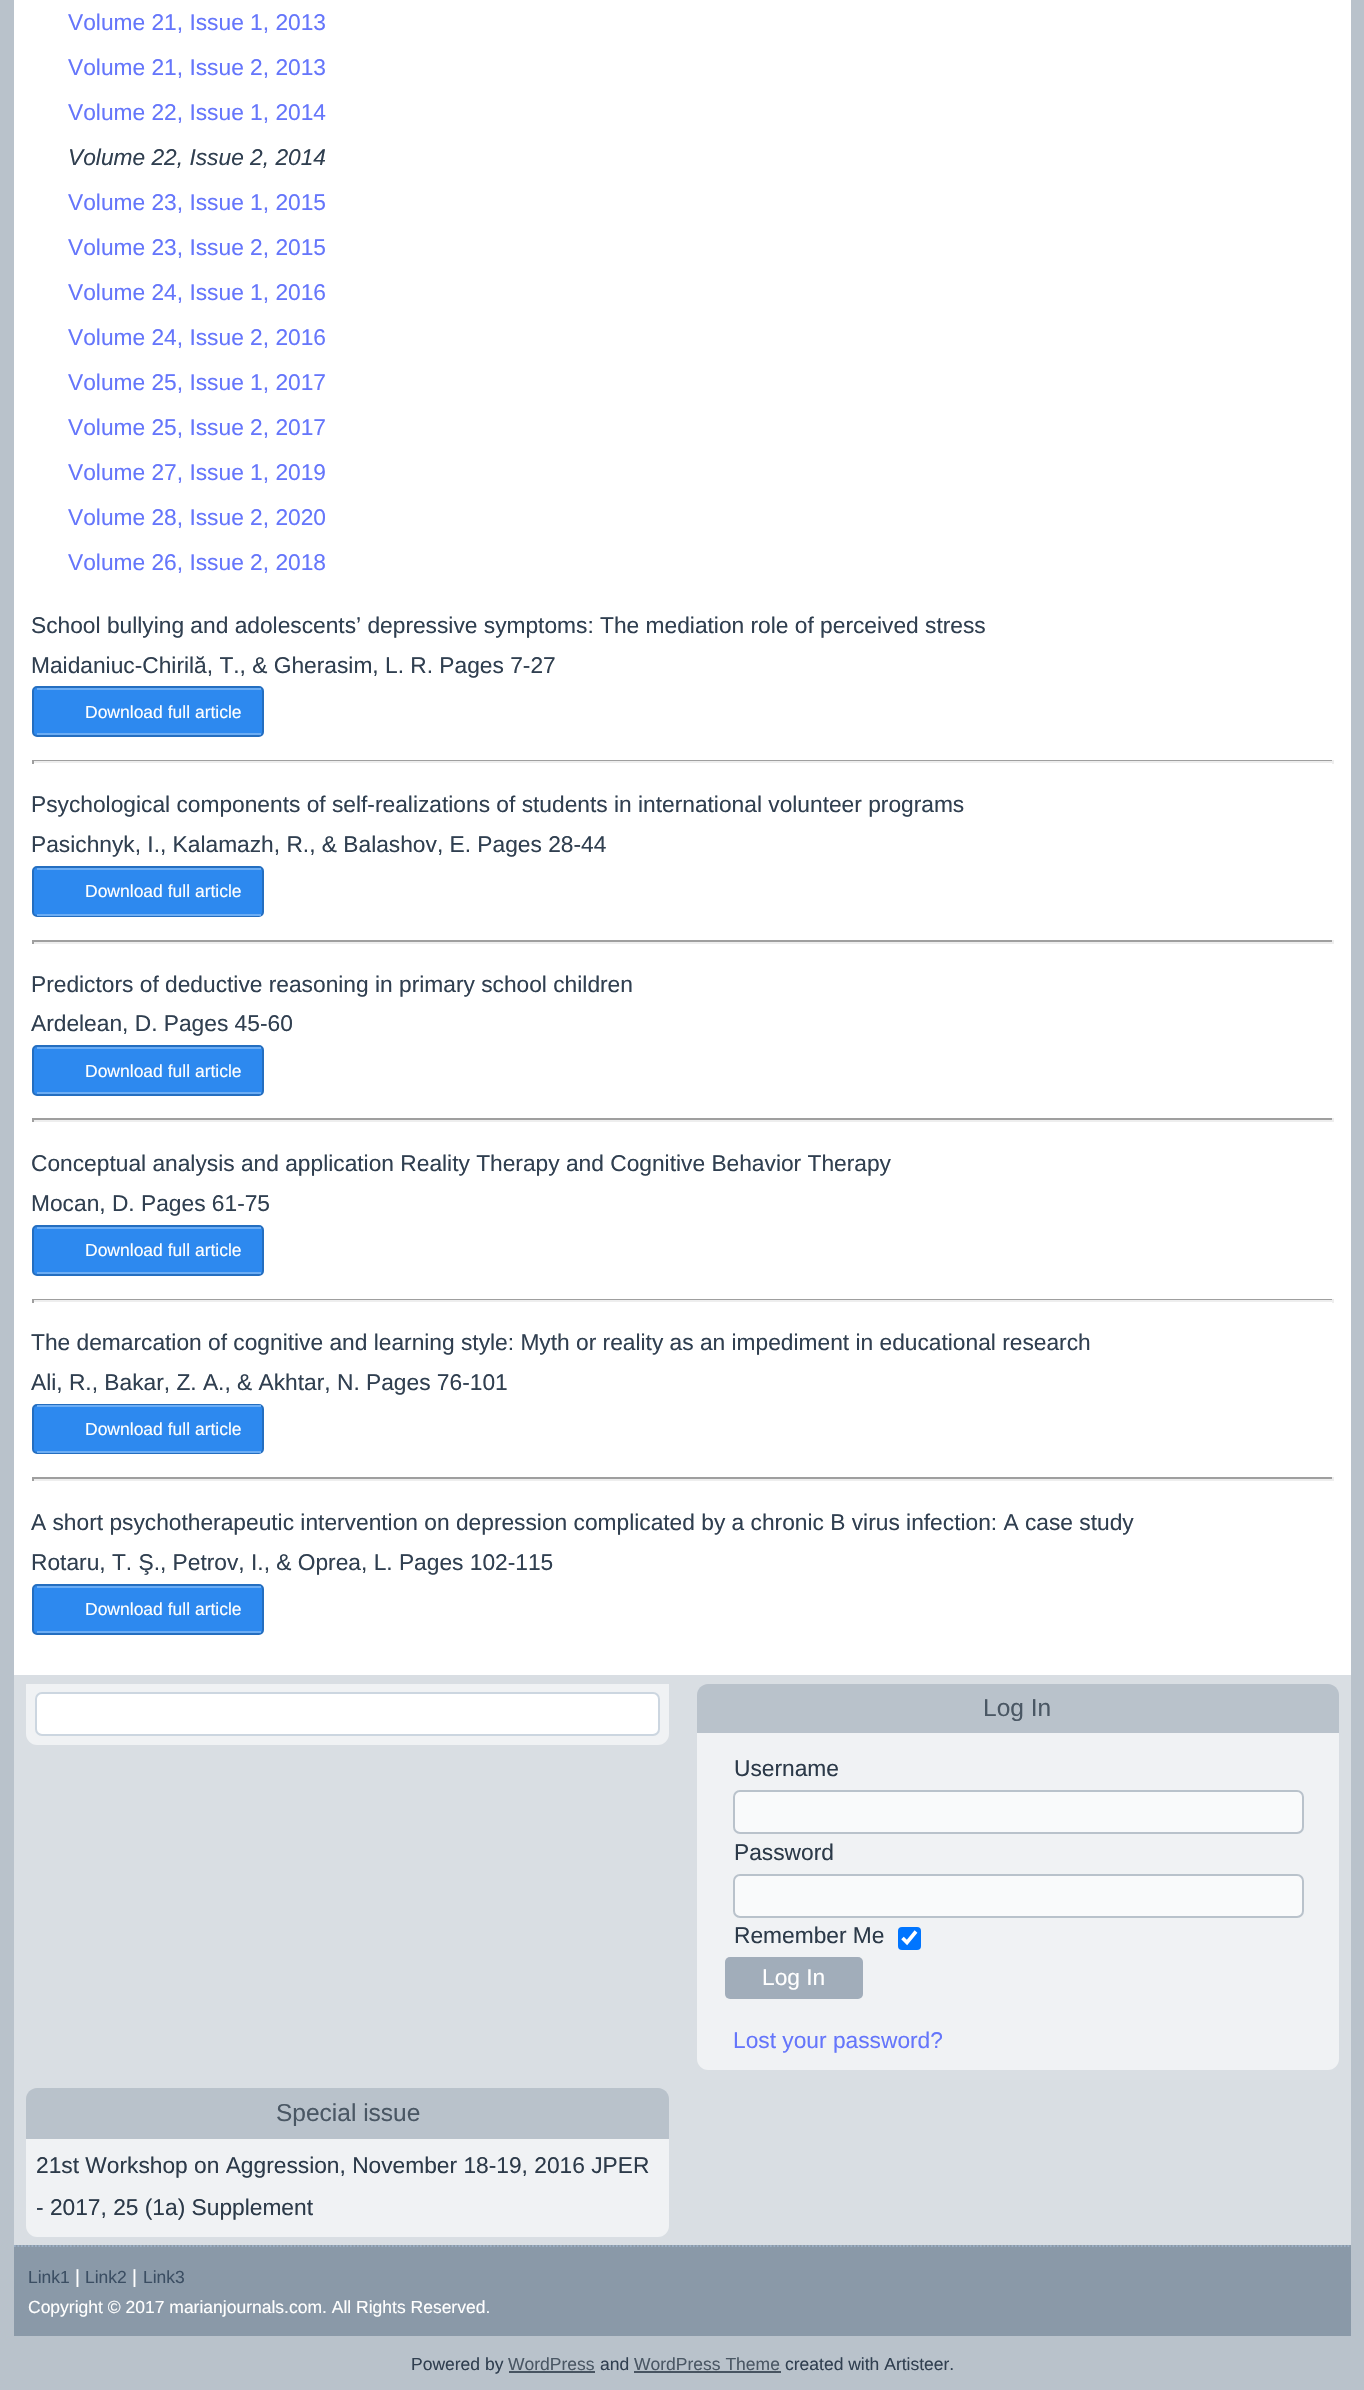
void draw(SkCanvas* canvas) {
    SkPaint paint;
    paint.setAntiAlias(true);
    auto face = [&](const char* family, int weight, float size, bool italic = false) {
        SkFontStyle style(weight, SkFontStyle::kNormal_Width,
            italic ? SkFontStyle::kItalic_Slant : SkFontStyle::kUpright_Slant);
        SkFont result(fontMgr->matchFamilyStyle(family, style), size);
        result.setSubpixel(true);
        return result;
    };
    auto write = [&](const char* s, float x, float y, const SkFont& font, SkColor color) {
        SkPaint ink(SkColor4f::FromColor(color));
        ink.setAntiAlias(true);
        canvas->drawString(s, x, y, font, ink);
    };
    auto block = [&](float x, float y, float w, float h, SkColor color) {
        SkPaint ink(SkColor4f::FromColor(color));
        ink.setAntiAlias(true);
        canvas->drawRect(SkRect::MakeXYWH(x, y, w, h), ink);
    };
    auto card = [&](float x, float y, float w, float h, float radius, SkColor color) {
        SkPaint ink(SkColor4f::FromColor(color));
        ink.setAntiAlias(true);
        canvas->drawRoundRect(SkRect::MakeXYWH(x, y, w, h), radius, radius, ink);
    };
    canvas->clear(SkColorSetRGB(185, 194, 203));
    block(14, 0, 1337, 1675, SK_ColorWHITE);
    auto kFont1 = face("Liberation Sans", 400, 22.75f);
    write("Volume 21, Issue 1, 2013", 68, 30, kFont1, SkColorSetRGB(101, 118, 251));
    write("Volume 21, Issue 2, 2013", 68, 75, kFont1, SkColorSetRGB(101, 118, 251));
    write("Volume 22, Issue 1, 2014", 68, 120, kFont1, SkColorSetRGB(101, 118, 251));
    auto kFont2 = face("Liberation Sans", 400, 22.75f, true);
    write("Volume 22, Issue 2, 2014", 68, 165, kFont2, SkColorSetRGB(48, 63, 80));
    write("Volume 23, Issue 1, 2015", 68, 210, kFont1, SkColorSetRGB(101, 118, 251));
    write("Volume 23, Issue 2, 2015", 68, 255, kFont1, SkColorSetRGB(101, 118, 251));
    write("Volume 24, Issue 1, 2016", 68, 300, kFont1, SkColorSetRGB(101, 118, 251));
    write("Volume 24, Issue 2, 2016", 68, 345, kFont1, SkColorSetRGB(101, 118, 251));
    write("Volume 25, Issue 1, 2017", 68, 390, kFont1, SkColorSetRGB(101, 118, 251));
    write("Volume 25, Issue 2, 2017", 68, 435, kFont1, SkColorSetRGB(101, 118, 251));
    write("Volume 27, Issue 1, 2019", 68, 480, kFont1, SkColorSetRGB(101, 118, 251));
    write("Volume 28, Issue 2, 2020", 68, 525, kFont1, SkColorSetRGB(101, 118, 251));
    write("Volume 26, Issue 2, 2018", 68, 570, kFont1, SkColorSetRGB(101, 118, 251));
    write("School bullying and adolescents’ depressive symptoms: The mediation role of perceived stress", 31, 633, kFont1, SkColorSetRGB(48, 63, 80));
    write("Maidaniuc-Chirilă, T., & Gherasim, L. R. Pages 7-27", 31, 673, kFont1, SkColorSetRGB(48, 63, 80));
    paint.setColor(SkColorSetRGB(45, 137, 239));
    canvas->drawRoundRect(SkRect::MakeXYWH(33, 687, 230, 49), 4, 4, paint);
    paint.setStyle(SkPaint::kStroke_Style);
    paint.setStrokeWidth(2);
    paint.setColor(SkColorSetRGB(36, 110, 192));
    canvas->drawRoundRect(SkRect::MakeXYWH(33, 687, 230, 49), 4, 4, paint);
    block(37, 688, 224, 2, SkColorSetRGB(108, 173, 244));
    block(37, 733, 224, 2, SkColorSetRGB(108, 173, 244));
    auto kFont3 = face("Liberation Sans", 400, 17.5f);
    write("Download full article", 85, 718, kFont3, SK_ColorWHITE);
    block(32, 760, 1302, 1, SkColorSetRGB(159, 159, 159));
    block(1332, 760, 2, 4, SkColorSetRGB(238, 238, 238));
    block(32, 761, 1302, 2, SkColorSetRGB(238, 238, 238));
    block(32, 760, 2, 4, SkColorSetRGB(159, 159, 159));
    write("Psychological components of self-realizations of students in international volunteer programs", 31, 812, kFont1, SkColorSetRGB(48, 63, 80));
    write("Pasichnyk, I., Kalamazh, R., & Balashov, E. Pages 28-44", 31, 852, kFont1, SkColorSetRGB(48, 63, 80));
    paint.setStyle(SkPaint::kFill_Style);
    paint.setColor(SkColorSetRGB(45, 137, 239));
    canvas->drawRoundRect(SkRect::MakeXYWH(33, 867, 230, 49), 4, 4, paint);
    paint.setStyle(SkPaint::kStroke_Style);
    paint.setColor(SkColorSetRGB(36, 110, 192));
    canvas->drawRoundRect(SkRect::MakeXYWH(33, 867, 230, 49), 4, 4, paint);
    block(37, 868, 224, 2, SkColorSetRGB(108, 173, 244));
    block(37, 914, 224, 2, SkColorSetRGB(108, 173, 244));
    write("Download full article", 85, 897, kFont3, SK_ColorWHITE);
    block(32, 940, 1302, 2, SkColorSetRGB(159, 159, 159));
    block(1332, 940, 2, 4, SkColorSetRGB(238, 238, 238));
    block(32, 942, 1302, 2, SkColorSetRGB(238, 238, 238));
    block(32, 940, 2, 4, SkColorSetRGB(159, 159, 159));
    write("Predictors of deductive reasoning in primary school children", 31, 992, kFont1, SkColorSetRGB(48, 63, 80));
    write("Ardelean, D. Pages 45-60", 31, 1031, kFont1, SkColorSetRGB(48, 63, 80));
    paint.setStyle(SkPaint::kFill_Style);
    paint.setColor(SkColorSetRGB(45, 137, 239));
    canvas->drawRoundRect(SkRect::MakeXYWH(33, 1046, 230, 49), 4, 4, paint);
    paint.setStyle(SkPaint::kStroke_Style);
    paint.setColor(SkColorSetRGB(36, 110, 192));
    canvas->drawRoundRect(SkRect::MakeXYWH(33, 1046, 230, 49), 4, 4, paint);
    block(37, 1047, 224, 2, SkColorSetRGB(108, 173, 244));
    block(37, 1092, 224, 2, SkColorSetRGB(108, 173, 244));
    write("Download full article", 85, 1077, kFont3, SK_ColorWHITE);
    block(32, 1118, 1302, 2, SkColorSetRGB(159, 159, 159));
    block(1332, 1118, 2, 4, SkColorSetRGB(238, 238, 238));
    block(32, 1120, 1302, 2, SkColorSetRGB(238, 238, 238));
    block(32, 1118, 2, 4, SkColorSetRGB(159, 159, 159));
    write("Conceptual analysis and application Reality Therapy and Cognitive Behavior Therapy", 31, 1171, kFont1, SkColorSetRGB(48, 63, 80));
    write("Mocan, D. Pages 61-75", 31, 1211, kFont1, SkColorSetRGB(48, 63, 80));
    paint.setStyle(SkPaint::kFill_Style);
    paint.setColor(SkColorSetRGB(45, 137, 239));
    canvas->drawRoundRect(SkRect::MakeXYWH(33, 1226, 230, 49), 4, 4, paint);
    paint.setStyle(SkPaint::kStroke_Style);
    paint.setColor(SkColorSetRGB(36, 110, 192));
    canvas->drawRoundRect(SkRect::MakeXYWH(33, 1226, 230, 49), 4, 4, paint);
    block(37, 1227, 224, 2, SkColorSetRGB(108, 173, 244));
    block(37, 1272, 224, 2, SkColorSetRGB(108, 173, 244));
    write("Download full article", 85, 1256, kFont3, SK_ColorWHITE);
    block(32, 1299, 1302, 1, SkColorSetRGB(159, 159, 159));
    block(1332, 1299, 2, 4, SkColorSetRGB(238, 238, 238));
    block(32, 1300, 1302, 2, SkColorSetRGB(238, 238, 238));
    block(32, 1299, 2, 4, SkColorSetRGB(159, 159, 159));
    write("The demarcation of cognitive and learning style: Myth or reality as an impediment in educational research", 31, 1350, kFont1, SkColorSetRGB(48, 63, 80));
    write("Ali, R., Bakar, Z. A., & Akhtar, N. Pages 76-101", 31, 1390, kFont1, SkColorSetRGB(48, 63, 80));
    paint.setStyle(SkPaint::kFill_Style);
    paint.setColor(SkColorSetRGB(45, 137, 239));
    canvas->drawRoundRect(SkRect::MakeXYWH(33, 1405, 230, 48), 4, 4, paint);
    paint.setStyle(SkPaint::kStroke_Style);
    paint.setColor(SkColorSetRGB(36, 110, 192));
    canvas->drawRoundRect(SkRect::MakeXYWH(33, 1405, 230, 48), 4, 4, paint);
    block(37, 1405, 224, 2, SkColorSetRGB(108, 173, 244));
    block(37, 1451, 224, 2, SkColorSetRGB(108, 173, 244));
    write("Download full article", 85, 1435, kFont3, SK_ColorWHITE);
    block(32, 1477, 1302, 2, SkColorSetRGB(159, 159, 159));
    block(1332, 1477, 2, 4, SkColorSetRGB(238, 238, 238));
    block(32, 1479, 1302, 2, SkColorSetRGB(238, 238, 238));
    block(32, 1477, 2, 4, SkColorSetRGB(159, 159, 159));
    write("A short psychotherapeutic intervention on depression complicated by a chronic B virus infection: A case study", 31, 1530, kFont1, SkColorSetRGB(48, 63, 80));
    write("Rotaru, T. Ş., Petrov, I., & Oprea, L. Pages 102-115", 31, 1570, kFont1, SkColorSetRGB(48, 63, 80));
    paint.setStyle(SkPaint::kFill_Style);
    paint.setColor(SkColorSetRGB(45, 137, 239));
    canvas->drawRoundRect(SkRect::MakeXYWH(33, 1585, 230, 49), 4, 4, paint);
    paint.setStyle(SkPaint::kStroke_Style);
    paint.setColor(SkColorSetRGB(36, 110, 192));
    canvas->drawRoundRect(SkRect::MakeXYWH(33, 1585, 230, 49), 4, 4, paint);
    block(37, 1586, 224, 2, SkColorSetRGB(108, 173, 244));
    block(37, 1631, 224, 2, SkColorSetRGB(108, 173, 244));
    write("Download full article", 85, 1615, kFont3, SK_ColorWHITE);
    block(14, 1675, 1337, 570, SkColorSetRGB(217, 222, 227));
    paint.setStyle(SkPaint::kFill_Style);
    paint.setColor(SkColorSetRGB(240, 242, 244));
    canvas->drawPath(SkPathBuilder().moveTo(26, 1684).lineTo(669, 1684).lineTo(669, 1734).cubicTo(669, 1740, 664, 1745, 658, 1745).lineTo(37, 1745).cubicTo(31, 1745, 26, 1740, 26, 1734).close().detach(), paint);
    paint.setColor(SK_ColorWHITE);
    canvas->drawRoundRect(SkRect::MakeXYWH(36, 1693, 623, 42), 6, 6, paint);
    paint.setStyle(SkPaint::kStroke_Style);
    paint.setColor(SkColorSetRGB(204, 214, 224));
    canvas->drawRoundRect(SkRect::MakeXYWH(36, 1693, 623, 42), 6, 6, paint);
    paint.setStyle(SkPaint::kFill_Style);
    paint.setColor(SkColorSetRGB(185, 194, 203));
    canvas->drawPath(SkPathBuilder().moveTo(708, 1684).lineTo(1328, 1684).cubicTo(1334, 1684, 1339, 1689, 1339, 1695).lineTo(1339, 1733).lineTo(697, 1733).lineTo(697, 1695).cubicTo(697, 1689, 702, 1684, 708, 1684).close().detach(), paint);
    auto kFont4 = face("Liberation Sans", 400, 24.5f);
    write("Log In", 983, 1716, kFont4, SkColorSetRGB(74, 87, 100));
    paint.setColor(SkColorSetRGB(240, 242, 244));
    canvas->drawPath(SkPathBuilder().moveTo(697, 1733).lineTo(1339, 1733).lineTo(1339, 2059).cubicTo(1339, 2065, 1334, 2070, 1328, 2070).lineTo(708, 2070).cubicTo(702, 2070, 697, 2065, 697, 2059).close().detach(), paint);
    write("Username", 734, 1776, kFont1, SkColorSetRGB(44, 58, 73));
    paint.setColor(SkColorSetRGB(249, 250, 251));
    canvas->drawRoundRect(SkRect::MakeXYWH(734, 1791, 569, 42), 6, 6, paint);
    paint.setStyle(SkPaint::kStroke_Style);
    paint.setColor(SkColorSetRGB(185, 194, 203));
    canvas->drawRoundRect(SkRect::MakeXYWH(734, 1791, 569, 42), 6, 6, paint);
    write("Password", 734, 1860, kFont1, SkColorSetRGB(44, 58, 73));
    paint.setStyle(SkPaint::kFill_Style);
    paint.setColor(SkColorSetRGB(249, 250, 251));
    canvas->drawRoundRect(SkRect::MakeXYWH(734, 1875, 569, 42), 6, 6, paint);
    paint.setStyle(SkPaint::kStroke_Style);
    paint.setColor(SkColorSetRGB(185, 194, 203));
    canvas->drawRoundRect(SkRect::MakeXYWH(734, 1875, 569, 42), 6, 6, paint);
    write("Remember Me", 734, 1943, kFont1, SkColorSetRGB(44, 58, 73));
    card(898, 1927, 23, 23, 4, SkColorSetRGB(0, 117, 255));
    paint.setStrokeWidth(3.6f);
    paint.setColor(SK_ColorWHITE);
    canvas->drawPath(SkPathBuilder().moveTo(902.5f, 1938).lineTo(907, 1942.5f).lineTo(916, 1931.5f).detach(), paint);
    card(725, 1957, 138, 42, 5, SkColorSetRGB(161, 173, 186));
    write("Log In", 762, 1985, kFont1, SK_ColorWHITE);
    write("Lost your password?", 733, 2048, kFont1, SkColorSetRGB(101, 118, 251));
    paint.setStyle(SkPaint::kFill_Style);
    paint.setColor(SkColorSetRGB(185, 194, 203));
    canvas->drawPath(SkPathBuilder().moveTo(37, 2088).lineTo(658, 2088).cubicTo(664, 2088, 669, 2093, 669, 2099).lineTo(669, 2139).lineTo(26, 2139).lineTo(26, 2099).cubicTo(26, 2093, 31, 2088, 37, 2088).close().detach(), paint);
    write("Special issue", 276, 2121, kFont4, SkColorSetRGB(74, 87, 100));
    paint.setColor(SkColorSetRGB(240, 242, 244));
    canvas->drawPath(SkPathBuilder().moveTo(26, 2139).lineTo(669, 2139).lineTo(669, 2226).cubicTo(669, 2232, 664, 2237, 658, 2237).lineTo(37, 2237).cubicTo(31, 2237, 26, 2232, 26, 2226).close().detach(), paint);
    write("21st Workshop on Aggression, November 18-19, 2016 JPER", 36, 2173, kFont1, SkColorSetRGB(44, 58, 73));
    write("- 2017, 25 (1a) Supplement", 36, 2215, kFont1, SkColorSetRGB(44, 58, 73));
    block(14, 2245, 1337, 91, SkColorSetRGB(138, 153, 168));
    paint.setStyle(SkPaint::kStroke_Style);
    paint.setStrokeWidth(1.8f);
    paint.setColor(SkColorSetRGB(156, 175, 196));
    paint.setPathEffect(SkDashPathEffect::Make({{1.75f, 1.75f}}, 0));
    canvas->drawPath(SkPathBuilder().moveTo(14, 2246).lineTo(1351, 2246).detach(), paint);
    paint.setPathEffect(nullptr);
    write("Link1", 28, 2283, kFont3, SkColorSetRGB(59, 78, 99));
    auto kFont5 = face("Liberation Sans", 400, 19);
    write("|", 75, 2283, kFont5, SK_ColorWHITE);
    write("Link2", 85, 2283, kFont3, SkColorSetRGB(59, 78, 99));
    write("|", 132, 2283, kFont5, SK_ColorWHITE);
    write("Link3", 143, 2283, kFont3, SkColorSetRGB(59, 78, 99));
    write("Copyright © 2017 marianjournals.com. All Rights Reserved.", 28, 2313, kFont3, SK_ColorWHITE);
    write("Powered by", 411, 2370, kFont3, SkColorSetRGB(48, 63, 80));
    write("WordPress", 508, 2370, kFont3, SkColorSetRGB(74, 87, 100));
    block(509, 2371, 86, 2, SkColorSetRGB(72, 84, 97));
    write("and", 600, 2370, kFont3, SkColorSetRGB(48, 63, 80));
    write("WordPress Theme", 634, 2370, kFont3, SkColorSetRGB(74, 87, 100));
    block(634, 2371, 147, 2, SkColorSetRGB(72, 84, 97));
    write("created with Artisteer.", 785, 2370, kFont3, SkColorSetRGB(48, 63, 80));
}
